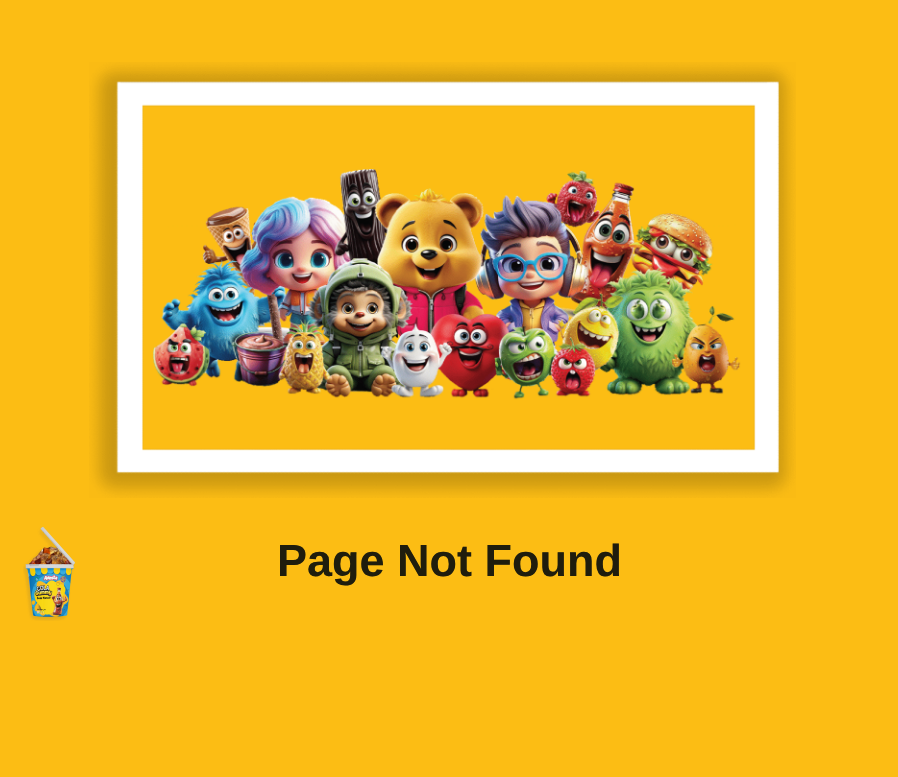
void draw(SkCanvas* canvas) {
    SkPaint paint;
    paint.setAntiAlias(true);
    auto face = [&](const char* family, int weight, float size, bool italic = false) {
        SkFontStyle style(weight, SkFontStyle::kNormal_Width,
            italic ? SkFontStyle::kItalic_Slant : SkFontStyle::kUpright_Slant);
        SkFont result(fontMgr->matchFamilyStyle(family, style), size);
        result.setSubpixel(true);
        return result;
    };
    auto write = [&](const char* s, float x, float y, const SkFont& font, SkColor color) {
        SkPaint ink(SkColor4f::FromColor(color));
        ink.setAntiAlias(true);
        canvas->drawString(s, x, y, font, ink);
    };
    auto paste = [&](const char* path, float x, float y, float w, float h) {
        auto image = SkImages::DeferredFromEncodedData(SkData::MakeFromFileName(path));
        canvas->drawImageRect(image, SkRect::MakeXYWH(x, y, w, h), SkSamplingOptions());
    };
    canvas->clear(SkColorSetRGB(252, 189, 20));
    paste("pic1.png", 89, 62, 707, 436);
    paste("pic2.png", 23, 526, 52, 95);
    auto kFont1 = face("Liberation Sans", 700, 45);
    write("Page Not Found", 277, 576, kFont1, SkColorSetRGB(31, 29, 13));
}
